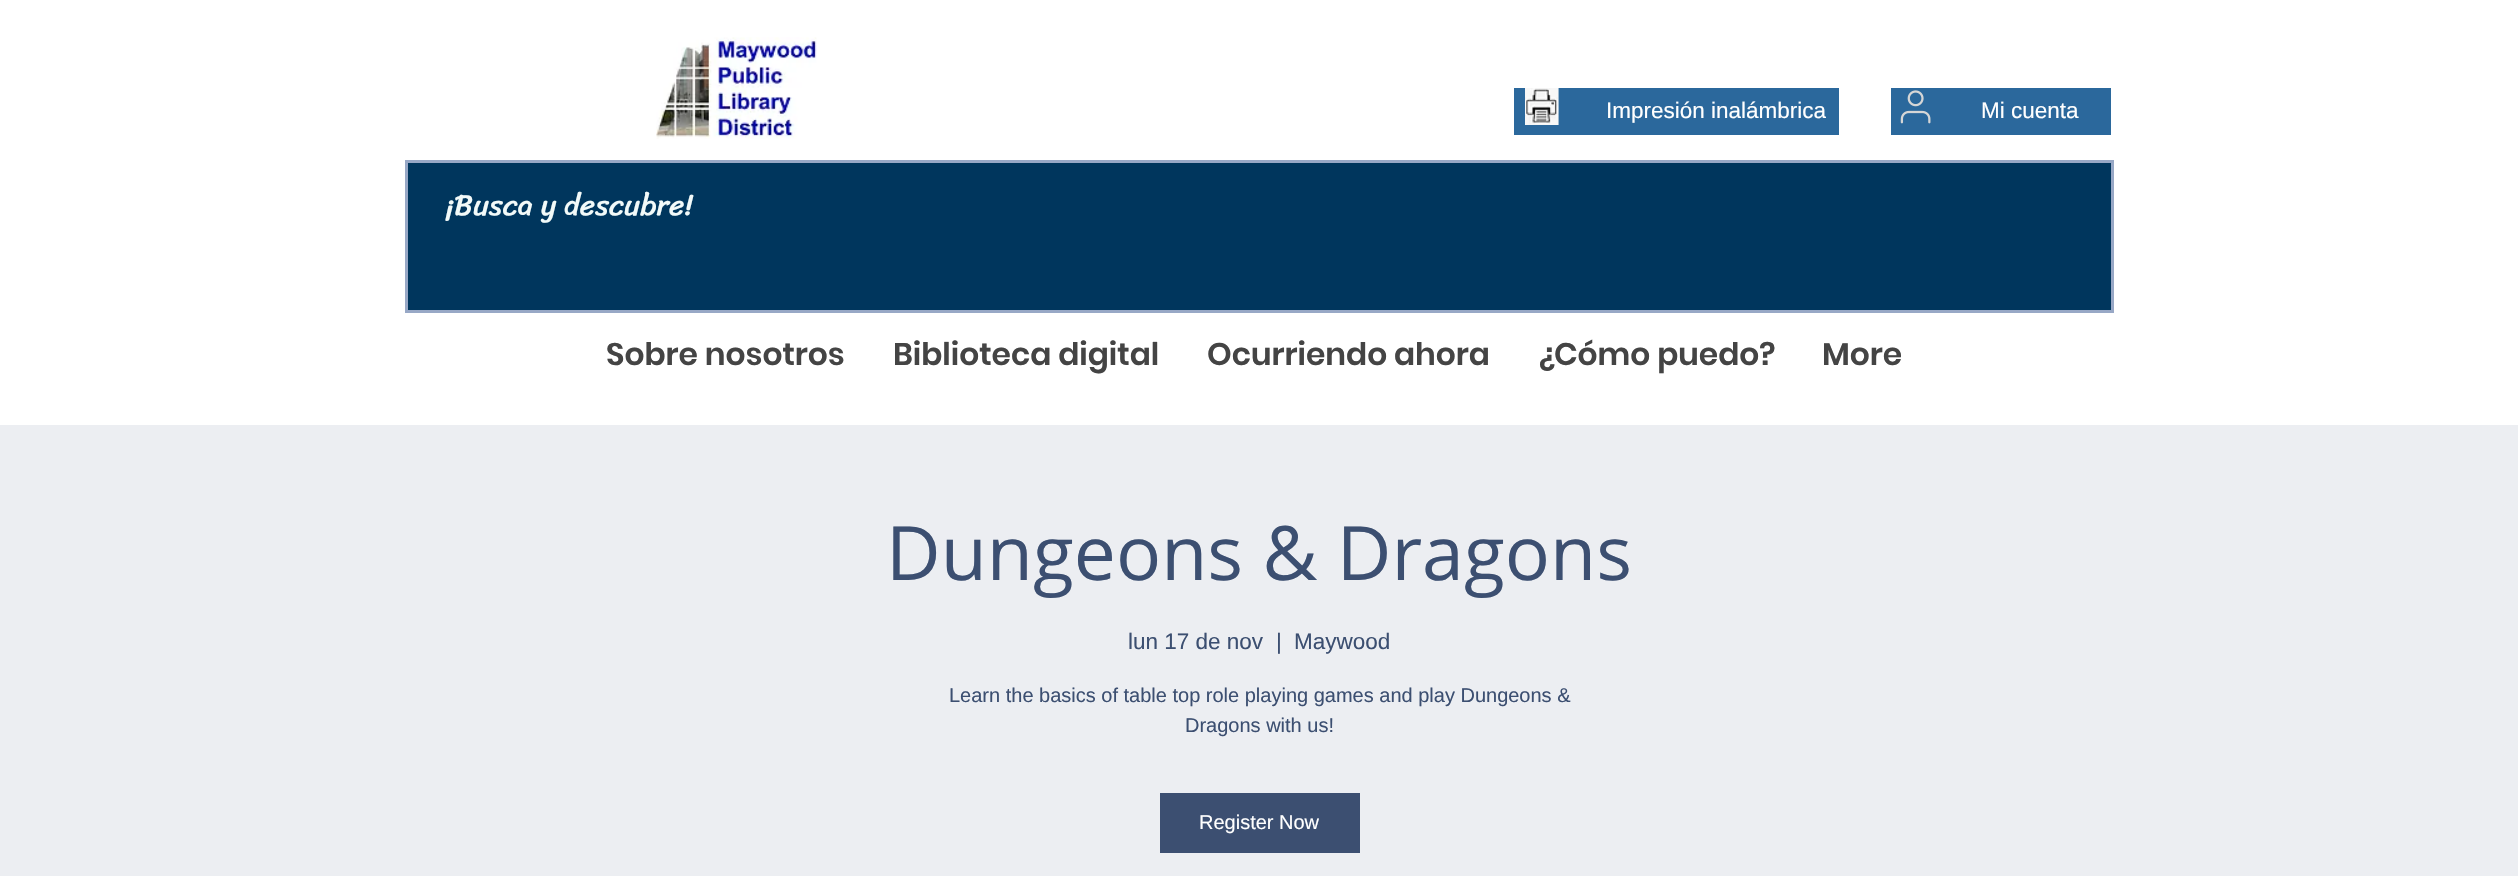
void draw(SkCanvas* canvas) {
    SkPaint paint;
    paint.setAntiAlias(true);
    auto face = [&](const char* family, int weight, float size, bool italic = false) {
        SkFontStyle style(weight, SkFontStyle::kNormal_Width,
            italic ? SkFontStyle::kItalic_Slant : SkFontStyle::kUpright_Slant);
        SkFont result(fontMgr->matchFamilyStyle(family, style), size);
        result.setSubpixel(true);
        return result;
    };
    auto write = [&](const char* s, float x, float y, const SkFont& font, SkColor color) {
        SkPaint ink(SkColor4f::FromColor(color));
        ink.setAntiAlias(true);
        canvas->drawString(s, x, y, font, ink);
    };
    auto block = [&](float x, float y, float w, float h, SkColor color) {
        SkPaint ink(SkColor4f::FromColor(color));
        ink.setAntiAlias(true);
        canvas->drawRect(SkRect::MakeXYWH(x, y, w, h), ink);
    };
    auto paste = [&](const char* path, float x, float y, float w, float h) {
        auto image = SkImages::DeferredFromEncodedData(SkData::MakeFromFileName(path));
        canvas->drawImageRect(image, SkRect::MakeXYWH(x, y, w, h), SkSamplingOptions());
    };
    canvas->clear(SK_ColorWHITE);
    paste("pic1.png", 656, 37, 161, 102);
    block(1514, 88, 325, 47, SkColorSetRGB(43, 104, 156));
    paste("pic2.png", 1525, 88, 34, 37);
    auto kFont1 = face("Liberation Sans", 400, 22.5f);
    write("Impresión inalámbrica", 1606, 118, kFont1, SK_ColorWHITE);
    block(1891, 88, 220, 47, SkColorSetRGB(43, 104, 156));
    paste("pic3.png", 1900, 90, 31, 34);
    write("Mi cuenta", 1981, 118, kFont1, SK_ColorWHITE);
    paint.setColor(SkColorSetRGB(0, 54, 93));
    canvas->drawRect(SkRect::MakeXYWH(406.5f, 161.5f, 1706, 150), paint);
    paint.setStyle(SkPaint::kStroke_Style);
    paint.setStrokeWidth(3);
    paint.setColor(SkColorSetRGB(152, 168, 198));
    canvas->drawRect(SkRect::MakeXYWH(406.5f, 161.5f, 1706, 150), paint);
    auto kFont2 = face("Sriracha", 400, 30);
    write("¡Busca y descubre!", 446, 215, kFont2, SkColorSetRGB(242, 250, 249));
    auto kFont3 = face("Poppins", 600, 31.25f);
    write("Sobre nosotros", 606, 365, kFont3, SkColorSetRGB(68, 68, 68));
    write("Biblioteca digital", 893, 365, kFont3, SkColorSetRGB(68, 68, 68));
    write("Ocurriendo ahora", 1207, 365, kFont3, SkColorSetRGB(68, 68, 68));
    write("¿Cómo puedo?", 1538, 365, kFont3, SkColorSetRGB(68, 68, 68));
    write("More", 1822, 365, kFont3, SkColorSetRGB(68, 68, 68));
    block(0, 425, 2518, 451, SkColorSetRGB(236, 238, 242));
    auto kFont4 = face("Open Sans", 400, 75);
    write("Dungeons & Dragons", 886, 580, kFont4, SkColorSetRGB(60, 79, 113));
    write("lun 17 de nov", 1128, 649, kFont1, SkColorSetRGB(60, 79, 113));
    write("|", 1276, 649, kFont1, SkColorSetRGB(60, 79, 113));
    write("Maywood", 1294, 649, kFont1, SkColorSetRGB(60, 79, 113));
    auto kFont5 = face("Liberation Sans", 400, 20);
    write("Learn the basics of table top role playing games and play Dungeons &", 949, 702, kFont5, SkColorSetRGB(60, 79, 113));
    write("Dragons with us!", 1185, 732, kFont5, SkColorSetRGB(60, 79, 113));
    block(1160, 793, 200, 60, SkColorSetRGB(60, 79, 113));
    write("Register Now", 1199, 829, kFont5, SK_ColorWHITE);
}
